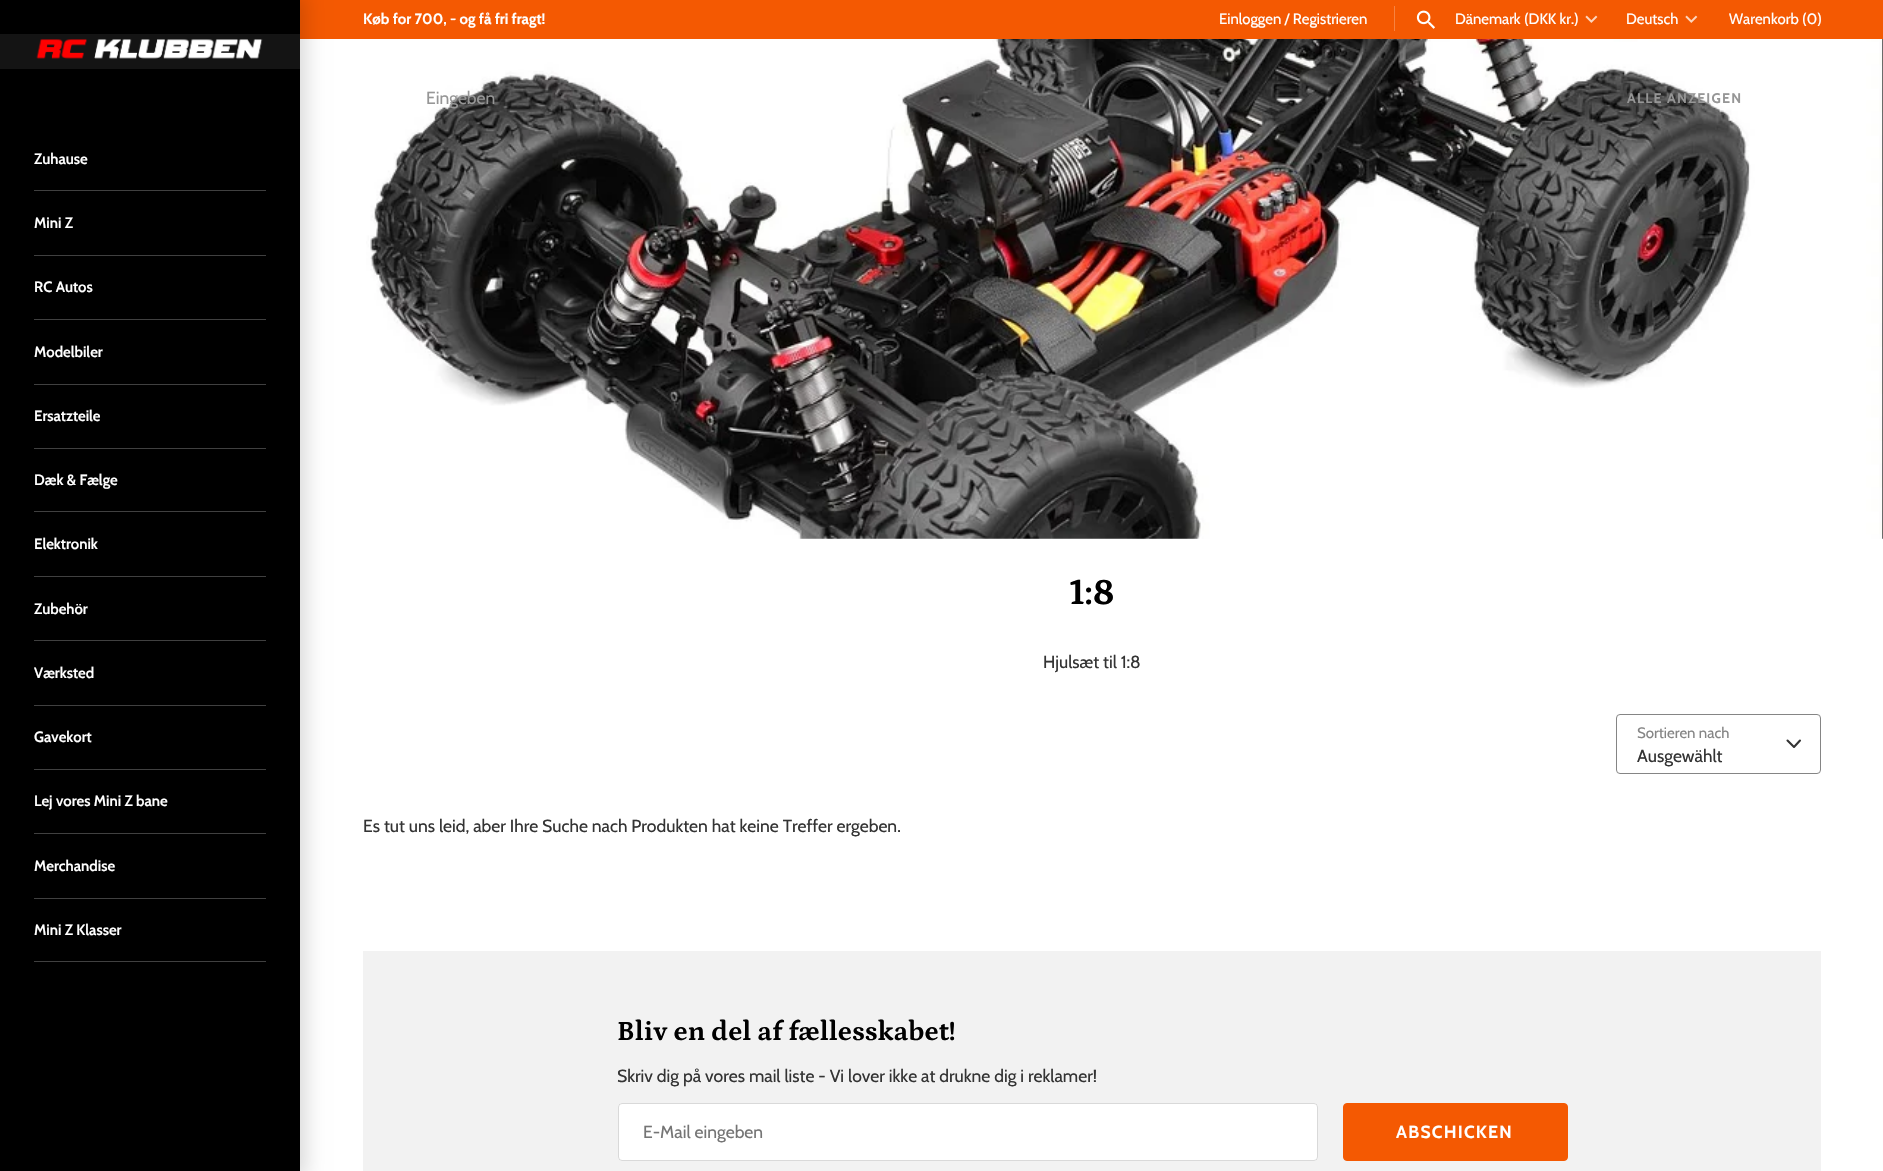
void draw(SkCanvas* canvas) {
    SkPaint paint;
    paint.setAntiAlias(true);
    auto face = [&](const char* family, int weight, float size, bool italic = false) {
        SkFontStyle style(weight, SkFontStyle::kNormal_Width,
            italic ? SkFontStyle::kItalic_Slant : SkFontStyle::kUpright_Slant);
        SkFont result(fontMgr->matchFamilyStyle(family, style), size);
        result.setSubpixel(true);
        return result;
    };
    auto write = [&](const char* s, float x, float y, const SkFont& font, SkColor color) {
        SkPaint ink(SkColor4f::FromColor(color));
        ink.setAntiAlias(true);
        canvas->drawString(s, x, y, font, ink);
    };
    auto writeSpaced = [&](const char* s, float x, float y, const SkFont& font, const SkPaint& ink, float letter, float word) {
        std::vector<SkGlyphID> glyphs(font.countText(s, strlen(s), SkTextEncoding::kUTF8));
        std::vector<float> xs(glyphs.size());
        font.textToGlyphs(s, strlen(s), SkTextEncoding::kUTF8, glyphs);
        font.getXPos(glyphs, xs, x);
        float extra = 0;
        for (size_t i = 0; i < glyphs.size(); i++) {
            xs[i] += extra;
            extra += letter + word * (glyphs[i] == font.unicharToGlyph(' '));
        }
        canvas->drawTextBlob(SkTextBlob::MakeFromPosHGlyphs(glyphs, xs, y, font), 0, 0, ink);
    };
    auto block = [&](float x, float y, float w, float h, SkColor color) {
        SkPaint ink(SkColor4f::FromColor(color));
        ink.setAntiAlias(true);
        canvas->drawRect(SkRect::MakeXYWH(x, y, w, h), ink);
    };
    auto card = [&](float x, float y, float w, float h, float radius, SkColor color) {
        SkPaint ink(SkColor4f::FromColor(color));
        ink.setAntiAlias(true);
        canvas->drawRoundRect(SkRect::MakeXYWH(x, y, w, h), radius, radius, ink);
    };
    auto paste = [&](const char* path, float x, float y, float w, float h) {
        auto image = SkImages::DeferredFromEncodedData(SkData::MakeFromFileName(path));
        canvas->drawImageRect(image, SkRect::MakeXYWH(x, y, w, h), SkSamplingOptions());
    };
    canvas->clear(SK_ColorWHITE);
    block(300, 0, 1583, 39, SkColorSetRGB(244, 89, 2));
    auto kFont1 = face("Cabin", 700, 14.9f);
    write("Køb for 700, - og få fri fragt!", 363, 24, kFont1, SK_ColorWHITE);
    auto kFont2 = face("Cabin", 400, 14.9f);
    write("Einloggen / Registrieren", 1219, 24, kFont2, SK_ColorWHITE);
    block(1394, 6, 1, 25, SkColorSetRGB(247, 131, 65));
    paste("pic1.png", 1416, 10, 19, 19);
    write("Dänemark (DKK kr.)", 1455, 24, kFont2, SK_ColorWHITE);
    paste("pic2.png", 1585, 15, 13, 8);
    write("Deutsch", 1626, 24, kFont2, SK_ColorWHITE);
    paste("pic3.png", 1685, 15, 13, 8);
    write("Warenkorb (0)", 1729, 24, kFont2, SK_ColorWHITE);
    paste("pic5.png", 366, 39, 1517, 500);
    auto kFont3 = face("Cabin", 400, 17.5f);
    write("Eingeben", 426, 104, kFont3, SkColorSetRGB(150, 150, 150));
    auto kFont4 = face("Cabin", 700, 14);
    paint.setColor(SkColorSetRGB(150, 150, 150));
    writeSpaced("ALLE ANZEIGEN", 1627, 103, kFont4, paint, 1.25f, 0);
    paint.setColor(SkColorSetARGB(38, 0, 0, 0));
    paint.setMaskFilter(SkMaskFilter::MakeBlur(kNormal_SkBlurStyle, 9.5f));
    canvas->drawRect(SkRect::MakeXYWH(-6, -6, 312, 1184), paint);
    paint.setMaskFilter(nullptr);
    block(0, 0, 300, 1171, SK_ColorBLACK);
    block(0, 34, 300, 35, SkColorSetRGB(20, 20, 20));
    paste("pic4.png", 36, 39, 227, 20);
    block(34, 190, 232, 1, SkColorSetRGB(64, 64, 64));
    auto kFont5 = face("Cabin", 600, 14.9f);
    write("Zuhause", 34, 164, kFont5, SK_ColorWHITE);
    block(34, 255, 232, 1, SkColorSetRGB(64, 64, 64));
    write("Mini Z", 34, 228, kFont5, SK_ColorWHITE);
    block(34, 319, 232, 1, SkColorSetRGB(64, 64, 64));
    write("RC Autos", 34, 292, kFont5, SK_ColorWHITE);
    block(34, 384, 232, 1, SkColorSetRGB(64, 64, 64));
    write("Modelbiler", 34, 357, kFont5, SK_ColorWHITE);
    block(34, 448, 232, 1, SkColorSetRGB(64, 64, 64));
    write("Ersatzteile", 34, 421, kFont5, SK_ColorWHITE);
    block(34, 511, 232, 1, SkColorSetRGB(64, 64, 64));
    write("Dæk & Fælge", 34, 485, kFont5, SK_ColorWHITE);
    block(34, 576, 232, 1, SkColorSetRGB(64, 64, 64));
    write("Elektronik", 34, 549, kFont5, SK_ColorWHITE);
    block(34, 640, 232, 1, SkColorSetRGB(64, 64, 64));
    write("Zubehör", 34, 614, kFont5, SK_ColorWHITE);
    block(34, 705, 232, 1, SkColorSetRGB(64, 64, 64));
    write("Værksted", 34, 678, kFont5, SK_ColorWHITE);
    block(34, 769, 232, 1, SkColorSetRGB(64, 64, 64));
    write("Gavekort", 34, 742, kFont5, SK_ColorWHITE);
    block(34, 833, 232, 1, SkColorSetRGB(64, 64, 64));
    write("Lej vores Mini Z bane", 34, 806, kFont5, SK_ColorWHITE);
    block(34, 898, 232, 1, SkColorSetRGB(64, 64, 64));
    write("Merchandise", 34, 871, kFont5, SK_ColorWHITE);
    block(34, 961, 232, 1, SkColorSetRGB(64, 64, 64));
    write("Mini Z Klasser", 34, 935, kFont5, SK_ColorWHITE);
    auto kFont6 = face("Petrona", 700, 37);
    write("1:8", 1069, 604, kFont6, SK_ColorBLACK);
    write("Hjulsæt til 1:8", 1043, 668, kFont3, SkColorSetRGB(52, 52, 52));
    paint.setStyle(SkPaint::kStroke_Style);
    paint.setStrokeWidth(1);
    paint.setColor(SkColorSetRGB(133, 133, 133));
    canvas->drawRoundRect(SkRect::MakeXYWH(1616.5f, 714.5f, 204, 59), 3.5f, 3.5f, paint);
    auto kFont7 = face("Cabin", 400, 15);
    write("Sortieren nach", 1637, 738, kFont7, SkColorSetRGB(133, 133, 133));
    paint.setStrokeWidth(2.1f);
    paint.setStrokeCap(SkPaint::kRound_Cap);
    paint.setStrokeJoin(SkPaint::kRound_Join);
    paint.setColor(SkColorSetRGB(52, 52, 52));
    canvas->drawPath(SkPathBuilder().moveTo(1787.5f, 740.5f).lineTo(1794, 747).lineTo(1800, 740.5f).detach(), paint);
    write("Ausgewählt", 1637, 762, kFont3, SkColorSetRGB(52, 52, 52));
    write("Es tut uns leid, aber Ihre Suche nach Produkten hat keine Treffer ergeben.", 363, 832, kFont3, SkColorSetRGB(52, 52, 52));
    block(363, 951, 1458, 220, SkColorSetRGB(242, 242, 242));
    auto kFont8 = face("Petrona", 700, 28);
    write("Bliv en del af fællesskabet!", 617, 1040, kFont8, SK_ColorBLACK);
    write("Skriv dig på vores mail liste - Vi lover ikke at drukne dig i reklamer!", 617, 1082, kFont3, SkColorSetRGB(52, 52, 52));
    card(618, 1103, 700, 58, 4, SK_ColorWHITE);
    paint.setStrokeWidth(1);
    paint.setStrokeCap(SkPaint::kButt_Cap);
    paint.setStrokeJoin(SkPaint::kMiter_Join);
    paint.setColor(SkColorSetARGB(38, 0, 0, 0));
    canvas->drawRoundRect(SkRect::MakeXYWH(618.5f, 1103.5f, 699, 57), 3.5f, 3.5f, paint);
    write("E-Mail eingeben", 643, 1138, kFont3, SkColorSetRGB(117, 117, 117));
    paint.setStyle(SkPaint::kFill_Style);
    paint.setColor(SkColorSetRGB(244, 89, 2));
    canvas->drawRoundRect(SkRect::MakeXYWH(1343.5f, 1103.5f, 224, 57), 3.5f, 3.5f, paint);
    paint.setStyle(SkPaint::kStroke_Style);
    canvas->drawRoundRect(SkRect::MakeXYWH(1343.5f, 1103.5f, 224, 57), 3.5f, 3.5f, paint);
    auto kFont9 = face("Cabin", 700, 17.5f);
    paint.setStyle(SkPaint::kFill_Style);
    paint.setColor(SK_ColorWHITE);
    writeSpaced("ABSCHICKEN", 1396, 1138, kFont9, paint, 1.25f, 0);
}
